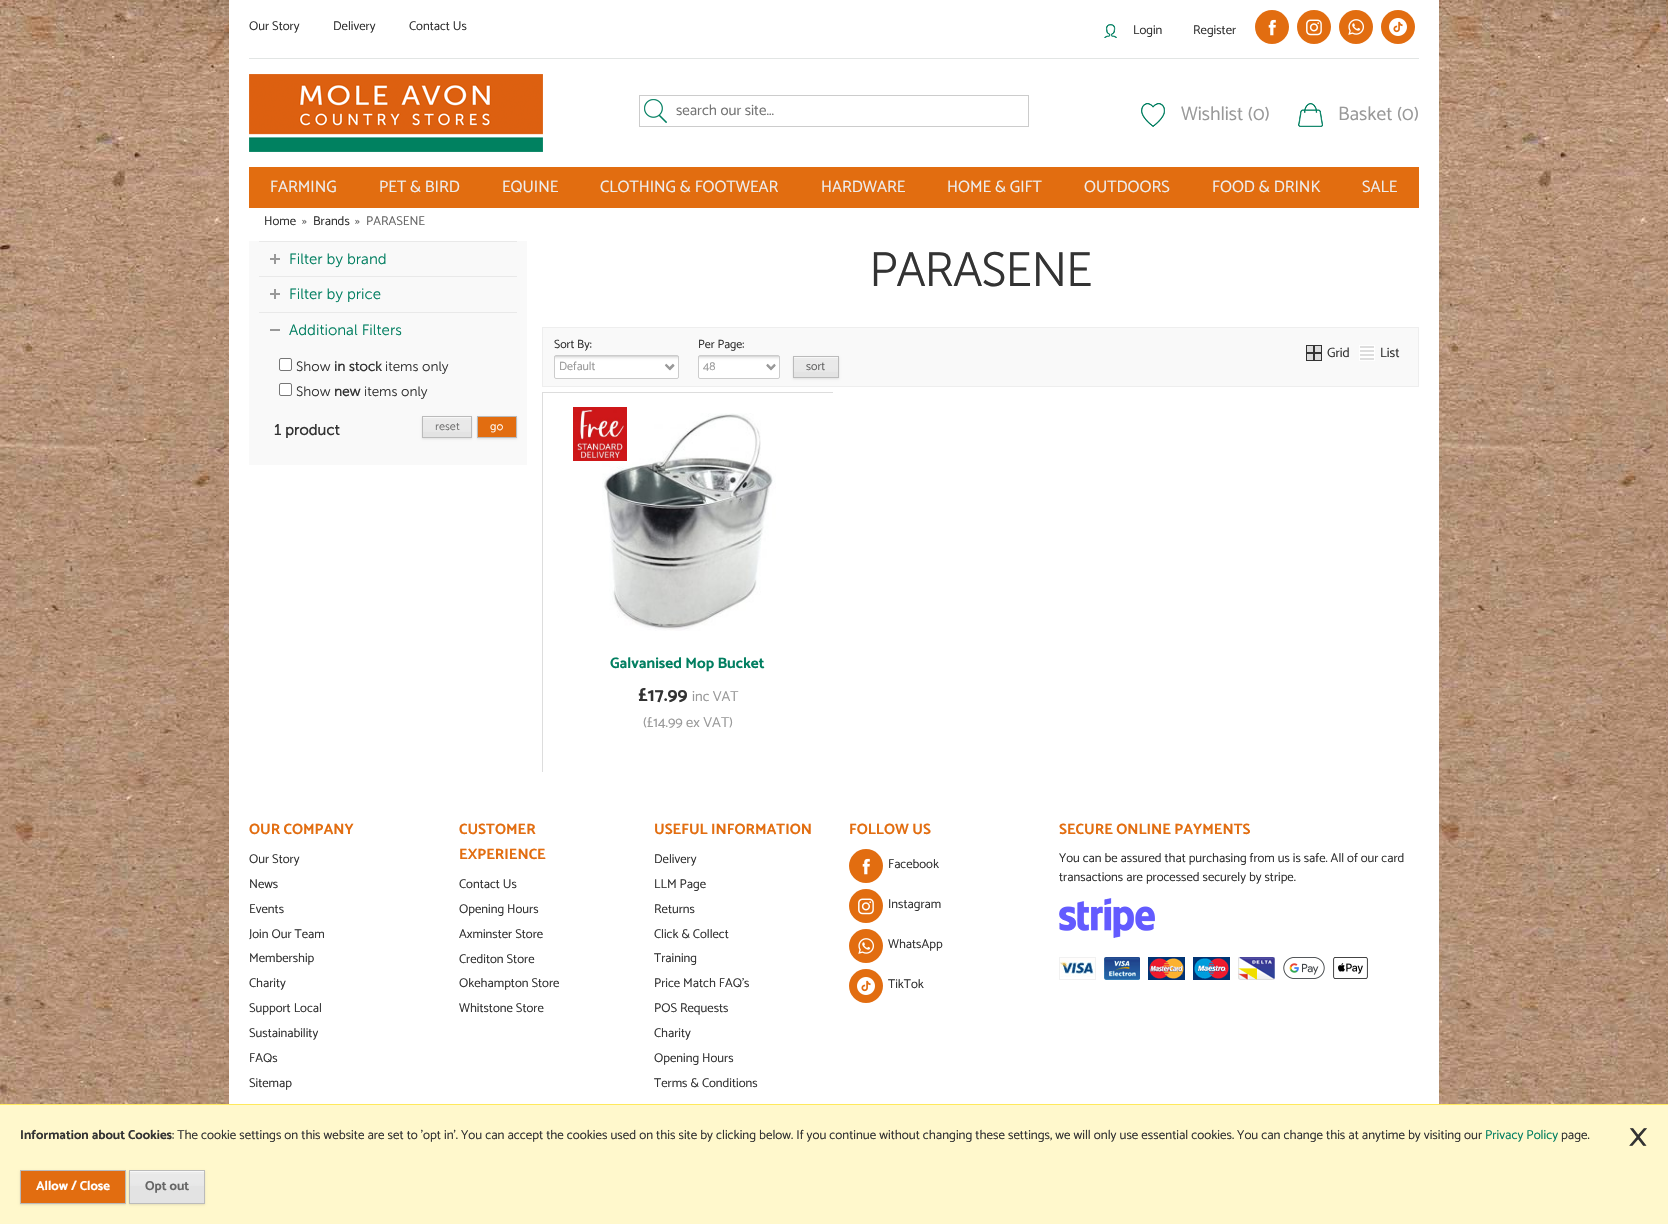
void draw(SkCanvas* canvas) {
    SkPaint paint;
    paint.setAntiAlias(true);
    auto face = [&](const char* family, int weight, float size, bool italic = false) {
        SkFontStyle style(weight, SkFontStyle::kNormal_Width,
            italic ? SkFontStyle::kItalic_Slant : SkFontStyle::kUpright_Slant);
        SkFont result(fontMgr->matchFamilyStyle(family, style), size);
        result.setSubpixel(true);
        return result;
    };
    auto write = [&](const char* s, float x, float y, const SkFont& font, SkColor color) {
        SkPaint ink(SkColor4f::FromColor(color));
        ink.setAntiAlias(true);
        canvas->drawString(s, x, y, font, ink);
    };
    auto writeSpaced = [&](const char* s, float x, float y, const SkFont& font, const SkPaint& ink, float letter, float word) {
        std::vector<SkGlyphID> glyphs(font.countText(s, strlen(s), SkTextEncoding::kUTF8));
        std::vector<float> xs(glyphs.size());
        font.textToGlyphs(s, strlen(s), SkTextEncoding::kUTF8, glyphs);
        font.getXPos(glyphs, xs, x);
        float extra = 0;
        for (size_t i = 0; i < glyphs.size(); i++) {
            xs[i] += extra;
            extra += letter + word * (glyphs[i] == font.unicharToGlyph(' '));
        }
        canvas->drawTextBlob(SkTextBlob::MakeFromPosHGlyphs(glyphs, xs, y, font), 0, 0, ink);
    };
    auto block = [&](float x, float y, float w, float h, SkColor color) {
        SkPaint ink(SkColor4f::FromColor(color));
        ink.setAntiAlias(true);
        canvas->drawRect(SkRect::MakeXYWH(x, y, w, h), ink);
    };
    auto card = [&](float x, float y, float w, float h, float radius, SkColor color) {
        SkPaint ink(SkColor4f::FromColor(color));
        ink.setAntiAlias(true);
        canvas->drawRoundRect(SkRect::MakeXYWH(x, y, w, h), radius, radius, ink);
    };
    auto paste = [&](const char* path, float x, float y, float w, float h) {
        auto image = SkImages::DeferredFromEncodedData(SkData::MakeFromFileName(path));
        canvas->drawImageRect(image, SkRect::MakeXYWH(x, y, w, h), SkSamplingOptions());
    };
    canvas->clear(SK_ColorWHITE);
    paste("pic1.png", 0, 0, 1668, 1104);
    block(229, 0, 20, 1104, SK_ColorWHITE);
    block(1419, 0, 20, 1104, SK_ColorWHITE);
    block(249, 0, 1170, 167, SK_ColorWHITE);
    block(249, 58, 1170, 1, SkColorSetRGB(226, 229, 228));
    auto kFont1 = face("Catamaran", 400, 12.75f);
    write("Our Story", 249, 30, kFont1, SkColorSetRGB(51, 51, 51));
    write("Delivery", 333, 30, kFont1, SkColorSetRGB(51, 51, 51));
    write("Contact Us", 409, 30, kFont1, SkColorSetRGB(51, 51, 51));
    paste("pic2.png", 1104, 24, 13, 14);
    write("Login", 1133, 34, kFont1, SkColorSetRGB(51, 51, 51));
    write("Register", 1193, 34, kFont1, SkColorSetRGB(51, 51, 51));
    paint.setColor(SkColorSetRGB(226, 109, 16));
    canvas->drawCircle(1272, 27, 17, paint);
    paste("pic3.png", 1268, 19, 8, 17);
    canvas->drawCircle(1314, 27, 17, paint);
    paste("pic4.png", 1306, 19, 16, 17);
    canvas->drawCircle(1356, 27, 17, paint);
    paste("pic5.png", 1348, 19, 16, 16);
    canvas->drawCircle(1398, 27, 17, paint);
    paste("pic6.png", 1389, 18, 18, 18);
    paste("pic7.png", 249, 74, 294, 78);
    paint.setStyle(SkPaint::kStroke_Style);
    paint.setStrokeWidth(1);
    paint.setColor(SkColorSetRGB(204, 204, 204));
    canvas->drawRect(SkRect::MakeXYWH(639.5f, 95.5f, 389, 31), paint);
    paste("pic8.png", 644, 99, 23, 24);
    auto kFont2 = face("Catamaran", 400, 15);
    write("search our site...", 676, 115, kFont2, SkColorSetRGB(117, 117, 117));
    paste("pic9.png", 1141, 103, 24, 24);
    auto kFont3 = face("Catamaran", 400, 19.5f);
    write("Wishlist (0)", 1181, 120, kFont3, SkColorSetRGB(153, 153, 153));
    paste("pic10.png", 1298, 103, 25, 24);
    write("Basket (0)", 1338, 120, kFont3, SkColorSetRGB(153, 153, 153));
    block(249, 167, 1170, 41, SkColorSetRGB(226, 109, 16));
    auto kFont4 = face("Catamaran", 400, 16.5f);
    write("FARMING", 270, 192, kFont4, SkColorSetRGB(238, 238, 238));
    write("PET & BIRD", 379, 192, kFont4, SkColorSetRGB(238, 238, 238));
    write("EQUINE", 502, 192, kFont4, SkColorSetRGB(238, 238, 238));
    write("CLOTHING & FOOTWEAR", 600, 192, kFont4, SkColorSetRGB(238, 238, 238));
    write("HARDWARE", 821, 192, kFont4, SkColorSetRGB(238, 238, 238));
    write("HOME & GIFT", 947, 192, kFont4, SkColorSetRGB(238, 238, 238));
    write("OUTDOORS", 1084, 192, kFont4, SkColorSetRGB(238, 238, 238));
    write("FOOD & DRINK", 1212, 192, kFont4, SkColorSetRGB(238, 238, 238));
    write("SALE", 1362, 192, kFont4, SkColorSetRGB(238, 238, 238));
    block(249, 208, 1170, 896, SK_ColorWHITE);
    write("Home", 264, 225, kFont1, SkColorSetRGB(51, 51, 51));
    write("»", 302, 225, kFont1, SkColorSetRGB(102, 102, 102));
    write("Brands", 313, 225, kFont1, SkColorSetRGB(51, 51, 51));
    write("»", 355, 225, kFont1, SkColorSetRGB(102, 102, 102));
    write("PARASENE", 366, 225, kFont1, SkColorSetRGB(102, 102, 102));
    block(249, 241, 278, 224, SkColorSetRGB(249, 249, 249));
    paste("pic11.png", 270, 254, 10, 10);
    block(259, 241, 258, 1, SkColorSetRGB(233, 233, 233));
    auto kFont5 = face("Museo Sans", 300, 15);
    write("Filter by brand", 289, 264, kFont5, SkColorSetRGB(2, 127, 97));
    paste("pic11.png", 270, 289, 10, 10);
    block(259, 276, 258, 1, SkColorSetRGB(233, 233, 233));
    write("Filter by price", 289, 299, kFont5, SkColorSetRGB(2, 127, 97));
    block(270, 329, 10, 2, SkColorSetRGB(153, 153, 153));
    block(259, 312, 258, 1, SkColorSetRGB(233, 233, 233));
    write("Additional Filters", 289, 335, kFont5, SkColorSetRGB(2, 127, 97));
    paint.setStyle(SkPaint::kFill_Style);
    paint.setColor(SK_ColorWHITE);
    canvas->drawRoundRect(SkRect::MakeXYWH(279.5f, 358.5f, 12, 12), 1.5f, 1.5f, paint);
    paint.setStyle(SkPaint::kStroke_Style);
    paint.setColor(SkColorSetRGB(118, 118, 118));
    canvas->drawRoundRect(SkRect::MakeXYWH(279.5f, 358.5f, 12, 12), 1.5f, 1.5f, paint);
    auto kFont6 = face("Museo Sans", 300, 13.5f);
    write("Show", 296, 371, kFont6, SkColorSetRGB(51, 51, 51));
    auto kFont7 = face("Museo Sans", 700, 13.5f);
    write("in stock", 334, 371, kFont7, SkColorSetRGB(51, 51, 51));
    write("items only", 385, 371, kFont6, SkColorSetRGB(51, 51, 51));
    paint.setStyle(SkPaint::kFill_Style);
    paint.setColor(SK_ColorWHITE);
    canvas->drawRoundRect(SkRect::MakeXYWH(279.5f, 383.5f, 12, 12), 1.5f, 1.5f, paint);
    paint.setStyle(SkPaint::kStroke_Style);
    paint.setColor(SkColorSetRGB(118, 118, 118));
    canvas->drawRoundRect(SkRect::MakeXYWH(279.5f, 383.5f, 12, 12), 1.5f, 1.5f, paint);
    write("Show", 296, 396, kFont6, SkColorSetRGB(51, 51, 51));
    write("new", 334, 396, kFont7, SkColorSetRGB(51, 51, 51));
    write("items only", 364, 396, kFont6, SkColorSetRGB(51, 51, 51));
    auto kFont8 = face("Museo Sans", 700, 15);
    write("1 product", 274, 435, kFont8, SkColorSetRGB(51, 51, 51));
    paint.setStyle(SkPaint::kFill_Style);
    paint.setColor(SkColorSetARGB(26, 0, 0, 0));
    paint.setMaskFilter(SkMaskFilter::MakeBlur(kNormal_SkBlurStyle, 1));
    canvas->drawRect(SkRect::MakeXYWH(422, 417, 50, 22), paint);
    paint.setMaskFilter(nullptr);
    block(423, 432, 48, 5, SkColorSetRGB(227, 227, 227));
    paste("pic12.png", 423, 417, 48, 15);
    paint.setStyle(SkPaint::kStroke_Style);
    paint.setColor(SkColorSetRGB(187, 187, 187));
    canvas->drawRect(SkRect::MakeXYWH(422.5f, 416.5f, 49, 21), paint);
    auto kFont9 = face("Museo Sans", 300, 11);
    write("reset", 435, 430, kFont9, SkColorSetRGB(102, 102, 102));
    paint.setStyle(SkPaint::kFill_Style);
    paint.setColor(SkColorSetARGB(26, 0, 0, 0));
    paint.setMaskFilter(SkMaskFilter::MakeBlur(kNormal_SkBlurStyle, 1));
    canvas->drawRect(SkRect::MakeXYWH(477, 417, 40, 22), paint);
    paint.setMaskFilter(nullptr);
    paint.setColor(SkColorSetRGB(226, 109, 16));
    canvas->drawRect(SkRect::MakeXYWH(477.5f, 416.5f, 39, 21), paint);
    paint.setStyle(SkPaint::kStroke_Style);
    paint.setColor(SkColorSetRGB(187, 187, 187));
    canvas->drawRect(SkRect::MakeXYWH(477.5f, 416.5f, 39, 21), paint);
    write("go", 490, 430, kFont9, SK_ColorWHITE);
    auto kFont10 = face("Museo Sans", 300, 48);
    paint.setStyle(SkPaint::kFill_Style);
    paint.setColor(SkColorSetRGB(51, 51, 51));
    writeSpaced("PARASENE", 869, 286, kFont10, paint, -1.5f, 0);
    paint.setColor(SkColorSetRGB(249, 249, 249));
    canvas->drawRect(SkRect::MakeXYWH(542.5f, 327.5f, 876, 59), paint);
    paint.setStyle(SkPaint::kStroke_Style);
    paint.setColor(SkColorSetRGB(238, 238, 238));
    canvas->drawRect(SkRect::MakeXYWH(542.5f, 327.5f, 876, 59), paint);
    auto kFont11 = face("Catamaran", 400, 12);
    write("Sort By:", 554, 348, kFont11, SkColorSetRGB(51, 51, 51));
    card(554, 355, 125, 24, 2, SK_ColorWHITE);
    paste("pic13.png", 554, 356, 125, 15);
    paint.setColor(SkColorSetRGB(204, 204, 204));
    canvas->drawRoundRect(SkRect::MakeXYWH(554.5f, 355.5f, 124, 23), 1.5f, 1.5f, paint);
    paint.setStrokeWidth(2);
    paint.setColor(SkColorSetRGB(153, 153, 153));
    canvas->drawPath(SkPathBuilder().moveTo(665.5f, 364.5f).lineTo(669.5f, 368.5f).lineTo(673.5f, 364.5f).detach(), paint);
    write("Default", 559, 370, kFont11, SkColorSetRGB(153, 153, 153));
    write("Per Page:", 698, 348, kFont11, SkColorSetRGB(51, 51, 51));
    card(698, 355, 82, 24, 2, SK_ColorWHITE);
    paste("pic14.png", 698, 356, 82, 15);
    paint.setStrokeWidth(1);
    paint.setColor(SkColorSetRGB(204, 204, 204));
    canvas->drawRoundRect(SkRect::MakeXYWH(698.5f, 355.5f, 81, 23), 1.5f, 1.5f, paint);
    paint.setStrokeWidth(2);
    paint.setColor(SkColorSetRGB(153, 153, 153));
    canvas->drawPath(SkPathBuilder().moveTo(767, 364.5f).lineTo(771, 368.5f).lineTo(775, 364.5f).detach(), paint);
    write("48", 703, 370, kFont11, SkColorSetRGB(153, 153, 153));
    paint.setStyle(SkPaint::kFill_Style);
    paint.setColor(SkColorSetARGB(26, 0, 0, 0));
    paint.setMaskFilter(SkMaskFilter::MakeBlur(kNormal_SkBlurStyle, 1));
    canvas->drawRect(SkRect::MakeXYWH(793, 357, 46, 22), paint);
    paint.setMaskFilter(nullptr);
    block(794, 372, 44, 5, SkColorSetRGB(227, 227, 227));
    paste("pic15.png", 794, 357, 44, 15);
    paint.setStyle(SkPaint::kStroke_Style);
    paint.setStrokeWidth(1);
    paint.setColor(SkColorSetRGB(187, 187, 187));
    canvas->drawRect(SkRect::MakeXYWH(793.5f, 356.5f, 45, 21), paint);
    write("sort", 806, 370, kFont11, SkColorSetRGB(102, 102, 102));
    block(1306, 345, 16, 16, SkColorSetRGB(51, 51, 51));
    paste("pic16.png", 1307, 346, 14, 14);
    auto kFont12 = face("Catamaran", 400, 13.5f);
    write("Grid", 1327, 357, kFont12, SkColorSetRGB(51, 51, 51));
    block(1359, 345, 16, 16, SK_ColorWHITE);
    paste("pic17.png", 1360, 346, 14, 14);
    write("List", 1380, 357, kFont12, SkColorSetRGB(51, 51, 51));
    block(542, 392, 292, 1, SkColorSetRGB(221, 221, 221));
    block(833, 392, 1, 1, SK_ColorWHITE);
    block(542, 392, 1, 380, SkColorSetRGB(221, 221, 221));
    paste("pic19.png", 602, 413, 174, 218);
    paste("pic18.png", 573, 407, 54, 54);
    auto kFont13 = face("Catamaran", 700, 15.25f);
    write("Galvanised Mop Bucket", 610, 668, kFont13, SkColorSetRGB(2, 127, 97));
    auto kFont14 = face("Catamaran", 700, 19);
    write("£17.99", 638, 701, kFont14, SkColorSetRGB(51, 51, 51));
    auto kFont15 = face("Catamaran", 400, 14.5f);
    write("inc VAT", 692, 701, kFont15, SkColorSetRGB(153, 153, 153));
    write("(£14.99 ex VAT)", 643, 727, kFont15, SkColorSetRGB(153, 153, 153));
    auto kFont16 = face("Catamaran", 700, 15);
    write("OUR COMPANY", 249, 834, kFont16, SkColorSetRGB(226, 109, 16));
    write("Our Story", 249, 863, kFont1, SkColorSetRGB(51, 51, 51));
    write("News", 249, 888, kFont1, SkColorSetRGB(51, 51, 51));
    write("Events", 249, 913, kFont1, SkColorSetRGB(51, 51, 51));
    write("Join Our Team", 249, 938, kFont1, SkColorSetRGB(51, 51, 51));
    write("Membership", 249, 962, kFont1, SkColorSetRGB(51, 51, 51));
    write("Charity", 249, 987, kFont1, SkColorSetRGB(51, 51, 51));
    write("Support Local", 249, 1012, kFont1, SkColorSetRGB(51, 51, 51));
    write("Sustainability", 249, 1037, kFont1, SkColorSetRGB(51, 51, 51));
    write("FAQs", 249, 1062, kFont1, SkColorSetRGB(51, 51, 51));
    write("Sitemap", 249, 1087, kFont1, SkColorSetRGB(51, 51, 51));
    write("CUSTOMER", 459, 834, kFont16, SkColorSetRGB(226, 109, 16));
    write("EXPERIENCE", 459, 859, kFont16, SkColorSetRGB(226, 109, 16));
    write("Contact Us", 459, 888, kFont1, SkColorSetRGB(51, 51, 51));
    write("Opening Hours", 459, 913, kFont1, SkColorSetRGB(51, 51, 51));
    write("Axminster Store", 459, 938, kFont1, SkColorSetRGB(51, 51, 51));
    write("Crediton Store", 459, 963, kFont1, SkColorSetRGB(51, 51, 51));
    write("Okehampton Store", 459, 987, kFont1, SkColorSetRGB(51, 51, 51));
    write("Whitstone Store", 459, 1012, kFont1, SkColorSetRGB(51, 51, 51));
    write("USEFUL INFORMATION", 654, 834, kFont16, SkColorSetRGB(226, 109, 16));
    write("Delivery", 654, 863, kFont1, SkColorSetRGB(51, 51, 51));
    write("LLM Page", 654, 888, kFont1, SkColorSetRGB(51, 51, 51));
    write("Returns", 654, 913, kFont1, SkColorSetRGB(51, 51, 51));
    write("Click & Collect", 654, 938, kFont1, SkColorSetRGB(51, 51, 51));
    write("Training", 654, 962, kFont1, SkColorSetRGB(51, 51, 51));
    write("Price Match FAQ's", 654, 987, kFont1, SkColorSetRGB(51, 51, 51));
    write("POS Requests", 654, 1012, kFont1, SkColorSetRGB(51, 51, 51));
    write("Charity", 654, 1037, kFont1, SkColorSetRGB(51, 51, 51));
    write("Opening Hours", 654, 1062, kFont1, SkColorSetRGB(51, 51, 51));
    write("Terms & Conditions", 654, 1087, kFont1, SkColorSetRGB(51, 51, 51));
    write("FOLLOW US", 849, 834, kFont16, SkColorSetRGB(226, 109, 16));
    paint.setStyle(SkPaint::kFill_Style);
    paint.setColor(SkColorSetRGB(226, 109, 16));
    canvas->drawCircle(866, 866, 17, paint);
    paste("pic3.png", 862, 858, 8, 17);
    write("Facebook", 888, 868, kFont1, SkColorSetRGB(51, 51, 51));
    canvas->drawCircle(866, 906, 17, paint);
    paste("pic4.png", 858, 898, 16, 17);
    write("Instagram", 888, 908, kFont1, SkColorSetRGB(51, 51, 51));
    canvas->drawCircle(866, 946, 17, paint);
    paste("pic5.png", 858, 938, 16, 16);
    write("WhatsApp", 888, 948, kFont1, SkColorSetRGB(51, 51, 51));
    canvas->drawCircle(866, 986, 17, paint);
    paste("pic6.png", 857, 977, 18, 18);
    write("TikTok", 888, 988, kFont1, SkColorSetRGB(51, 51, 51));
    write("SECURE ONLINE PAYMENTS", 1059, 834, kFont16, SkColorSetRGB(226, 109, 16));
    write("You can be assured that purchasing from us is safe. All of our card", 1059, 862, kFont1, SkColorSetRGB(51, 51, 51));
    write("transactions are processed securely by stripe.", 1059, 881, kFont1, SkColorSetRGB(51, 51, 51));
    paste("pic20.png", 1059, 898, 96, 40);
    paste("pic21.png", 1059, 957, 37, 23);
    paste("pic22.png", 1104, 957, 36, 23);
    paste("pic23.png", 1148, 957, 37, 23);
    paste("pic24.png", 1193, 957, 37, 23);
    paste("pic25.png", 1238, 957, 37, 23);
    paste("pic26.png", 1283, 957, 42, 22);
    paste("pic27.png", 1333, 957, 35, 22);
    block(0, 1105, 1668, 119, SkColorSetRGB(255, 248, 204));
    block(0, 1104, 1668, 1, SkColorSetRGB(255, 233, 92));
    auto kFont17 = face("Catamaran", 700, 13);
    write("Information about Cookies", 20, 1139, kFont17, SkColorSetRGB(51, 51, 51));
    auto kFont18 = face("Catamaran", 400, 13);
    write(": The cookie settings on this website are set to 'opt in'. You can accept the cookies used on this site by clicking below. If you continue without changing these settings, we will only use essential cookies. You can change this at anytime by visiting our", 172, 1139, kFont18, SkColorSetRGB(51, 51, 51));
    write("Privacy Policy", 1485, 1139, kFont18, SkColorSetRGB(2, 127, 97));
    write("page.", 1561, 1139, kFont18, SkColorSetRGB(51, 51, 51));
    auto kFont19 = face("Catamaran", 400, 40);
    write("×", 1628, 1147, kFont19, SkColorSetRGB(51, 51, 51));
    paint.setColor(SkColorSetARGB(26, 0, 0, 0));
    paint.setMaskFilter(SkMaskFilter::MakeBlur(kNormal_SkBlurStyle, 1));
    canvas->drawRect(SkRect::MakeXYWH(20, 1171, 106, 34), paint);
    paint.setMaskFilter(nullptr);
    paint.setColor(SkColorSetRGB(226, 109, 16));
    canvas->drawRect(SkRect::MakeXYWH(20.5f, 1170.5f, 105, 33), paint);
    paint.setStyle(SkPaint::kStroke_Style);
    paint.setColor(SkColorSetRGB(187, 187, 187));
    canvas->drawRect(SkRect::MakeXYWH(20.5f, 1170.5f, 105, 33), paint);
    write("Allow / Close", 36, 1190, kFont17, SK_ColorWHITE);
    paint.setStyle(SkPaint::kFill_Style);
    paint.setColor(SkColorSetARGB(26, 0, 0, 0));
    paint.setMaskFilter(SkMaskFilter::MakeBlur(kNormal_SkBlurStyle, 1));
    canvas->drawRect(SkRect::MakeXYWH(129, 1171, 76, 34), paint);
    paint.setMaskFilter(nullptr);
    block(130, 1186, 74, 17, SkColorSetRGB(227, 227, 227));
    paste("pic28.png", 130, 1171, 74, 15);
    paint.setStyle(SkPaint::kStroke_Style);
    paint.setColor(SkColorSetRGB(187, 187, 187));
    canvas->drawRect(SkRect::MakeXYWH(129.5f, 1170.5f, 75, 33), paint);
    write("Opt out", 145, 1190, kFont17, SkColorSetRGB(102, 102, 102));
}
